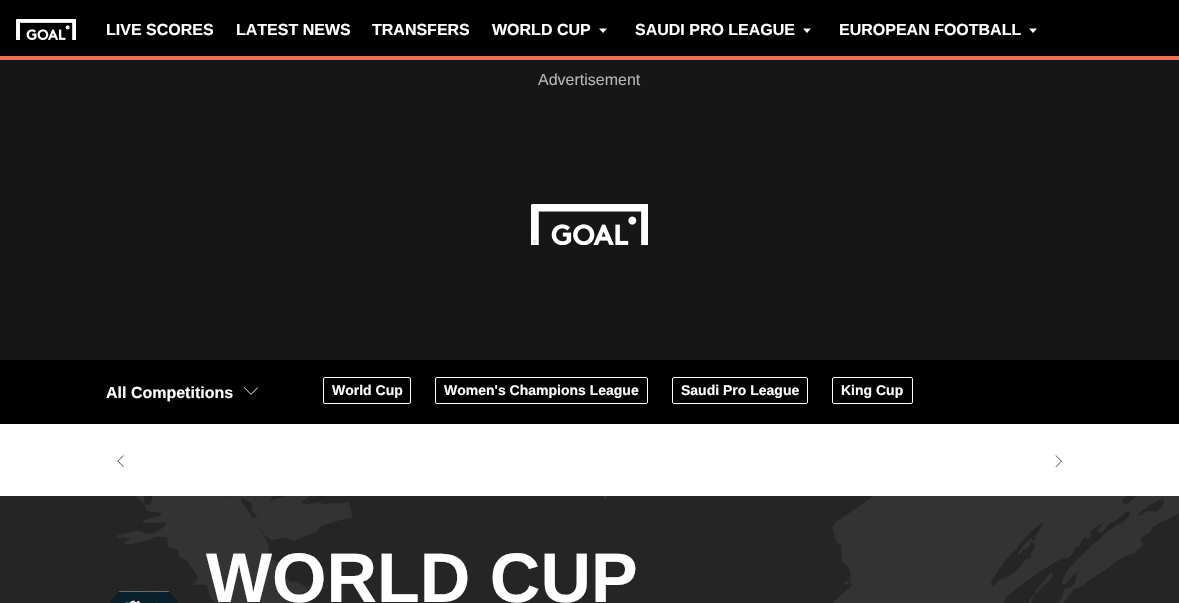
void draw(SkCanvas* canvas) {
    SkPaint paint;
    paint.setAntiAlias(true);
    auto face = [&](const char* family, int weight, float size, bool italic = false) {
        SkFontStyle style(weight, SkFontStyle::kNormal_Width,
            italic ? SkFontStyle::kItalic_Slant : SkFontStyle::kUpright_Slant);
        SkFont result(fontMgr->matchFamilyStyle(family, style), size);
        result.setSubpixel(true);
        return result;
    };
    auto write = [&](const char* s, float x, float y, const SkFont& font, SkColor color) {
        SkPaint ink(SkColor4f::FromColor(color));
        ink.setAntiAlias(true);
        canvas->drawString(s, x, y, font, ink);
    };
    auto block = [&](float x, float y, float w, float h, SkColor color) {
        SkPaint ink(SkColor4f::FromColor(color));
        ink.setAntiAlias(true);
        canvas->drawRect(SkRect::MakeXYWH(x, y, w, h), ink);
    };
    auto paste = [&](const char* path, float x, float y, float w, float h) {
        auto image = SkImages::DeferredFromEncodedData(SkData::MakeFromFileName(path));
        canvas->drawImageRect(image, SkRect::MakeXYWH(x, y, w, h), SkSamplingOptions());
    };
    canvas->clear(SK_ColorWHITE);
    block(0, 0, 1179, 56, SK_ColorBLACK);
    block(0, 56, 1179, 4, SkColorSetRGB(240, 112, 90));
    paste("pic1.png", 16, 19, 60, 21);
    auto kFont1 = face("Liberation Sans", 700, 16);
    write("LIVE SCORES", 106, 35, kFont1, SK_ColorWHITE);
    write("LATEST NEWS", 236, 35, kFont1, SK_ColorWHITE);
    write("TRANSFERS", 372, 35, kFont1, SK_ColorWHITE);
    write("WORLD CUP", 492, 35, kFont1, SK_ColorWHITE);
    paint.setColor(SK_ColorWHITE);
    canvas->drawPath(SkPathBuilder().moveTo(599, 28.5f).lineTo(603, 33).lineTo(607, 28.5f).close().detach(), paint);
    write("SAUDI PRO LEAGUE", 635, 35, kFont1, SK_ColorWHITE);
    canvas->drawPath(SkPathBuilder().moveTo(803, 28.5f).lineTo(807, 33).lineTo(811, 28.5f).close().detach(), paint);
    write("EUROPEAN FOOTBALL", 839, 35, kFont1, SK_ColorWHITE);
    canvas->drawPath(SkPathBuilder().moveTo(1029, 28.5f).lineTo(1033, 33).lineTo(1037, 28.5f).close().detach(), paint);
    block(0, 60, 1179, 300, SkColorSetRGB(22, 22, 23));
    auto kFont2 = face("Liberation Sans", 400, 16);
    write("Advertisement", 538, 85, kFont2, SkColorSetRGB(181, 182, 186));
    paste("pic2.png", 531, 204, 117, 41);
    block(0, 360, 1179, 64, SK_ColorBLACK);
    write("All Competitions", 106, 398, kFont1, SK_ColorWHITE);
    paste("pic3.png", 244, 387, 14, 8);
    paint.setStyle(SkPaint::kStroke_Style);
    paint.setStrokeWidth(1);
    canvas->drawRoundRect(SkRect::MakeXYWH(323.5f, 377.5f, 87, 26), 1.5f, 1.5f, paint);
    auto kFont3 = face("Liberation Sans", 700, 14);
    write("World Cup", 332, 395, kFont3, SK_ColorWHITE);
    canvas->drawRoundRect(SkRect::MakeXYWH(435.5f, 377.5f, 212, 26), 1.5f, 1.5f, paint);
    write("Women's Champions League", 444, 395, kFont3, SK_ColorWHITE);
    canvas->drawRoundRect(SkRect::MakeXYWH(672.5f, 377.5f, 135, 26), 1.5f, 1.5f, paint);
    write("Saudi Pro League", 681, 395, kFont3, SK_ColorWHITE);
    canvas->drawRoundRect(SkRect::MakeXYWH(832.5f, 377.5f, 80, 26), 1.5f, 1.5f, paint);
    write("King Cup", 841, 395, kFont3, SK_ColorWHITE);
    paste("pic4.png", 117, 455, 7, 12);
    paste("pic5.png", 1055, 455, 7, 12);
    paint.setStyle(SkPaint::kFill_Style);
    paint.setColor(SkColorSetRGB(51, 51, 51));
    canvas->drawPath(SkPathBuilder().moveTo(0, 496).lineTo(0, 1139).lineTo(2, 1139).lineTo(1179, 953).lineTo(1179, 496).close().detach(), paint);
    paste("pic6.png", 0, 496, 1179, 107);
    paste("pic7.png", 110, 591, 68, 12);
    auto kFont4 = face("Liberation Sans", 700, 70);
    write("WORLD CUP", 206, 602, kFont4, SK_ColorWHITE);
}
